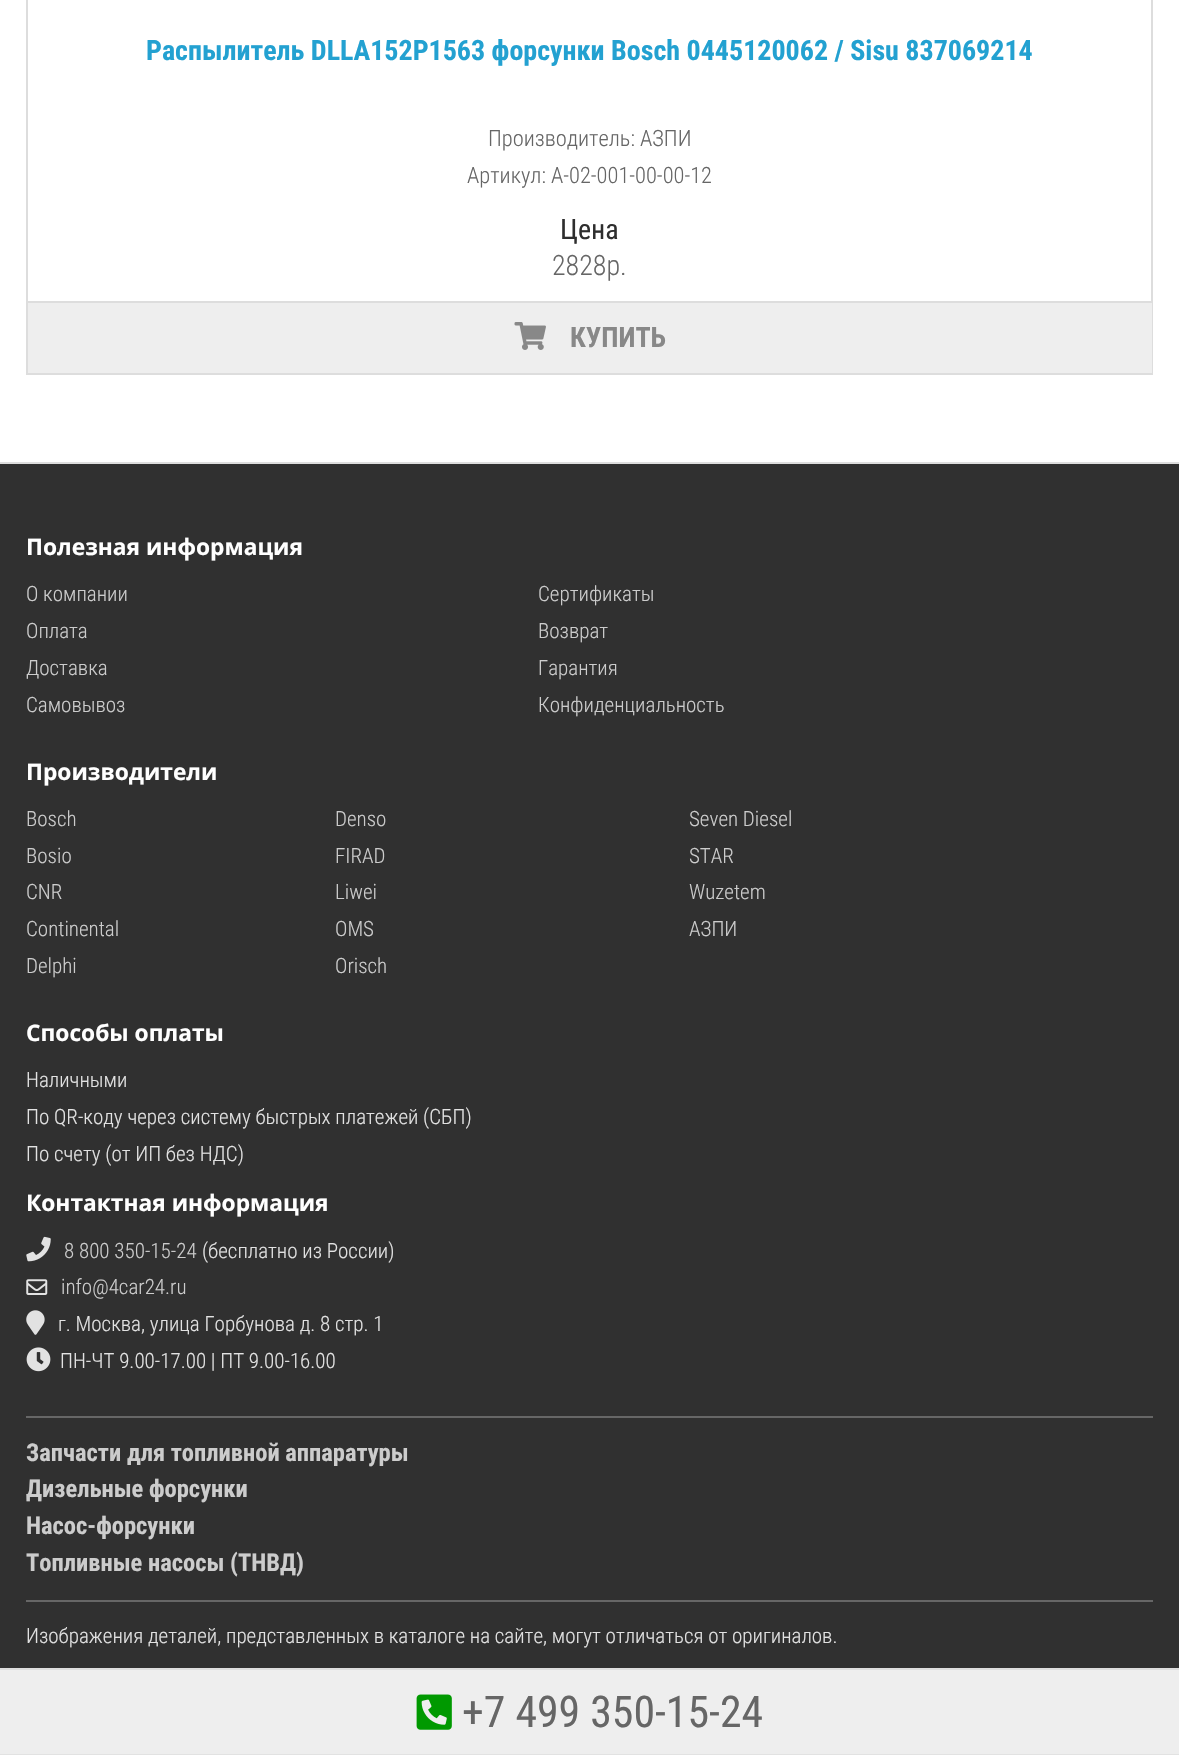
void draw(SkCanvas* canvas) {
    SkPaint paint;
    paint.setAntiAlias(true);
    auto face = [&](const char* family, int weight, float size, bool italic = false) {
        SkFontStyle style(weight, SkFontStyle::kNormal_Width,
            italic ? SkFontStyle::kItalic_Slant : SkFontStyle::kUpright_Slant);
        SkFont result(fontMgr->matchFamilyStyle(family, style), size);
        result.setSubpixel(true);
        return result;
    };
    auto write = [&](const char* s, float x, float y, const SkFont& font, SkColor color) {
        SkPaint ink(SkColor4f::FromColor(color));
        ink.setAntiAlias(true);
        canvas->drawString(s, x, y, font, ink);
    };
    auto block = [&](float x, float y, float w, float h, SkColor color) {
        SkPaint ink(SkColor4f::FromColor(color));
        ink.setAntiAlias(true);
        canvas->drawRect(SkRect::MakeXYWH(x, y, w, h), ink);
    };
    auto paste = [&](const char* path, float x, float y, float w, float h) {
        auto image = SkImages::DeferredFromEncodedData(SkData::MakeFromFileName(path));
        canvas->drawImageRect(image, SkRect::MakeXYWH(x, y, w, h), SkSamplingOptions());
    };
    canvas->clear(SK_ColorWHITE);
    paint.setStyle(SkPaint::kStroke_Style);
    paint.setStrokeWidth(2);
    paint.setColor(SkColorSetRGB(221, 221, 221));
    canvas->drawRect(SkRect::MakeXYWH(27, -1, 1125, 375), paint);
    auto kFont1 = face("Roboto Condensed", 700, 28);
    write("Распылитель DLLA152P1563 форсунки Bosch 0445120062 / Sisu 837069214", 146, 60, kFont1, SkColorSetRGB(35, 161, 209));
    auto kFont2 = face("Roboto Condensed", 300, 22.4f);
    write("Производитель: АЗПИ", 488, 146, kFont2, SkColorSetRGB(102, 102, 102));
    write("Артикул: A-02-001-00-00-12", 467, 183, kFont2, SkColorSetRGB(102, 102, 102));
    auto kFont3 = face("Roboto Condensed", 400, 28);
    write("Цена", 560, 239, kFont3, SkColorSetRGB(46, 46, 46));
    auto kFont4 = face("Roboto Condensed", 300, 28);
    write("2828р.", 552, 275, kFont4, SkColorSetRGB(102, 102, 102));
    block(28, 303, 1124, 70, SkColorSetRGB(238, 238, 238));
    block(28, 301, 1124, 2, SkColorSetRGB(221, 221, 221));
    paste("pic1.png", 514, 322, 32, 28);
    write("КУПИТЬ", 570, 347, kFont1, SkColorSetRGB(136, 136, 136));
    block(0, 464, 1179, 1204, SkColorSetRGB(48, 48, 48));
    block(0, 462, 1179, 2, SkColorSetRGB(221, 221, 221));
    auto kFont5 = face("Open Sans", 700, 22.75f);
    write("Полезная информация", 26, 555, kFont5, SK_ColorWHITE);
    auto kFont6 = face("Roboto Condensed", 300, 21);
    write("О компании", 26, 601, kFont6, SkColorSetRGB(204, 204, 204));
    write("Оплата", 26, 638, kFont6, SkColorSetRGB(204, 204, 204));
    write("Доставка", 26, 675, kFont6, SkColorSetRGB(204, 204, 204));
    write("Самовывоз", 26, 712, kFont6, SkColorSetRGB(204, 204, 204));
    write("Сертификаты", 538, 601, kFont6, SkColorSetRGB(204, 204, 204));
    write("Возврат", 538, 638, kFont6, SkColorSetRGB(204, 204, 204));
    write("Гарантия", 538, 675, kFont6, SkColorSetRGB(204, 204, 204));
    write("Конфиденциальность", 538, 712, kFont6, SkColorSetRGB(204, 204, 204));
    write("Производители", 26, 780, kFont5, SK_ColorWHITE);
    write("Bosch", 26, 826, kFont6, SkColorSetRGB(204, 204, 204));
    write("Bosio", 26, 863, kFont6, SkColorSetRGB(204, 204, 204));
    write("CNR", 26, 899, kFont6, SkColorSetRGB(204, 204, 204));
    write("Continental", 26, 936, kFont6, SkColorSetRGB(204, 204, 204));
    write("Delphi", 26, 973, kFont6, SkColorSetRGB(204, 204, 204));
    write("Denso", 335, 826, kFont6, SkColorSetRGB(204, 204, 204));
    write("FIRAD", 335, 863, kFont6, SkColorSetRGB(204, 204, 204));
    write("Liwei", 335, 899, kFont6, SkColorSetRGB(204, 204, 204));
    write("OMS", 335, 936, kFont6, SkColorSetRGB(204, 204, 204));
    write("Orisch", 335, 973, kFont6, SkColorSetRGB(204, 204, 204));
    write("Seven Diesel", 689, 826, kFont6, SkColorSetRGB(204, 204, 204));
    write("STAR", 689, 863, kFont6, SkColorSetRGB(204, 204, 204));
    write("Wuzetem", 689, 899, kFont6, SkColorSetRGB(204, 204, 204));
    write("АЗПИ", 689, 936, kFont6, SkColorSetRGB(204, 204, 204));
    write("Способы оплаты", 26, 1041, kFont5, SK_ColorWHITE);
    write("Наличными", 26, 1087, kFont6, SkColorSetRGB(226, 226, 226));
    write("По QR-коду через систему быстрых платежей (СБП)", 26, 1124, kFont6, SkColorSetRGB(226, 226, 226));
    write("По счету (от ИП без НДС)", 26, 1161, kFont6, SkColorSetRGB(226, 226, 226));
    write("Контактная информация", 26, 1211, kFont5, SK_ColorWHITE);
    paste("pic2.png", 26, 1236, 25, 26);
    write("8 800 350-15-24", 64, 1258, kFont6, SkColorSetRGB(204, 204, 204));
    write("(бесплатно из России)", 202, 1258, kFont6, SkColorSetRGB(226, 226, 226));
    paste("pic3.png", 26, 1279, 22, 16);
    write("info@4car24.ru", 61, 1294, kFont6, SkColorSetRGB(204, 204, 204));
    paste("pic4.png", 26, 1310, 19, 25);
    write("г. Москва, улица Горбунова д. 8 стр. 1", 58, 1331, kFont6, SkColorSetRGB(226, 226, 226));
    paste("pic5.png", 26, 1347, 25, 25);
    write("ПН-ЧТ 9.00-17.00 | ПТ 9.00-16.00", 60, 1368, kFont6, SkColorSetRGB(226, 226, 226));
    block(26, 1416, 1127, 2, SkColorSetRGB(102, 102, 102));
    auto kFont7 = face("Roboto Condensed", 700, 24.5f);
    write("Запчасти для топливной аппаратуры", 26, 1461, kFont7, SkColorSetRGB(204, 204, 204));
    write("Дизельные форсунки", 26, 1497, kFont7, SkColorSetRGB(204, 204, 204));
    write("Насос-форсунки", 26, 1534, kFont7, SkColorSetRGB(204, 204, 204));
    write("Топливные насосы (ТНВД)", 26, 1571, kFont7, SkColorSetRGB(204, 204, 204));
    block(26, 1600, 1127, 2, SkColorSetRGB(102, 102, 102));
    write("Изображения деталей, представленных в каталоге на сайте, могут отличаться от оригиналов.", 26, 1643, kFont6, SkColorSetRGB(226, 226, 226));
    block(0, 1670, 1179, 84, SkColorSetRGB(238, 238, 238));
    block(0, 1668, 1179, 2, SkColorSetRGB(221, 221, 221));
    block(0, 1754, 1179, 1, SkColorSetRGB(226, 226, 226));
    paste("pic6.png", 416, 1694, 36, 36);
    auto kFont8 = face("Roboto Condensed", 400, 43.75f);
    write("+7 499 350-15-24", 462, 1727, kFont8, SkColorSetRGB(102, 102, 102));
}
